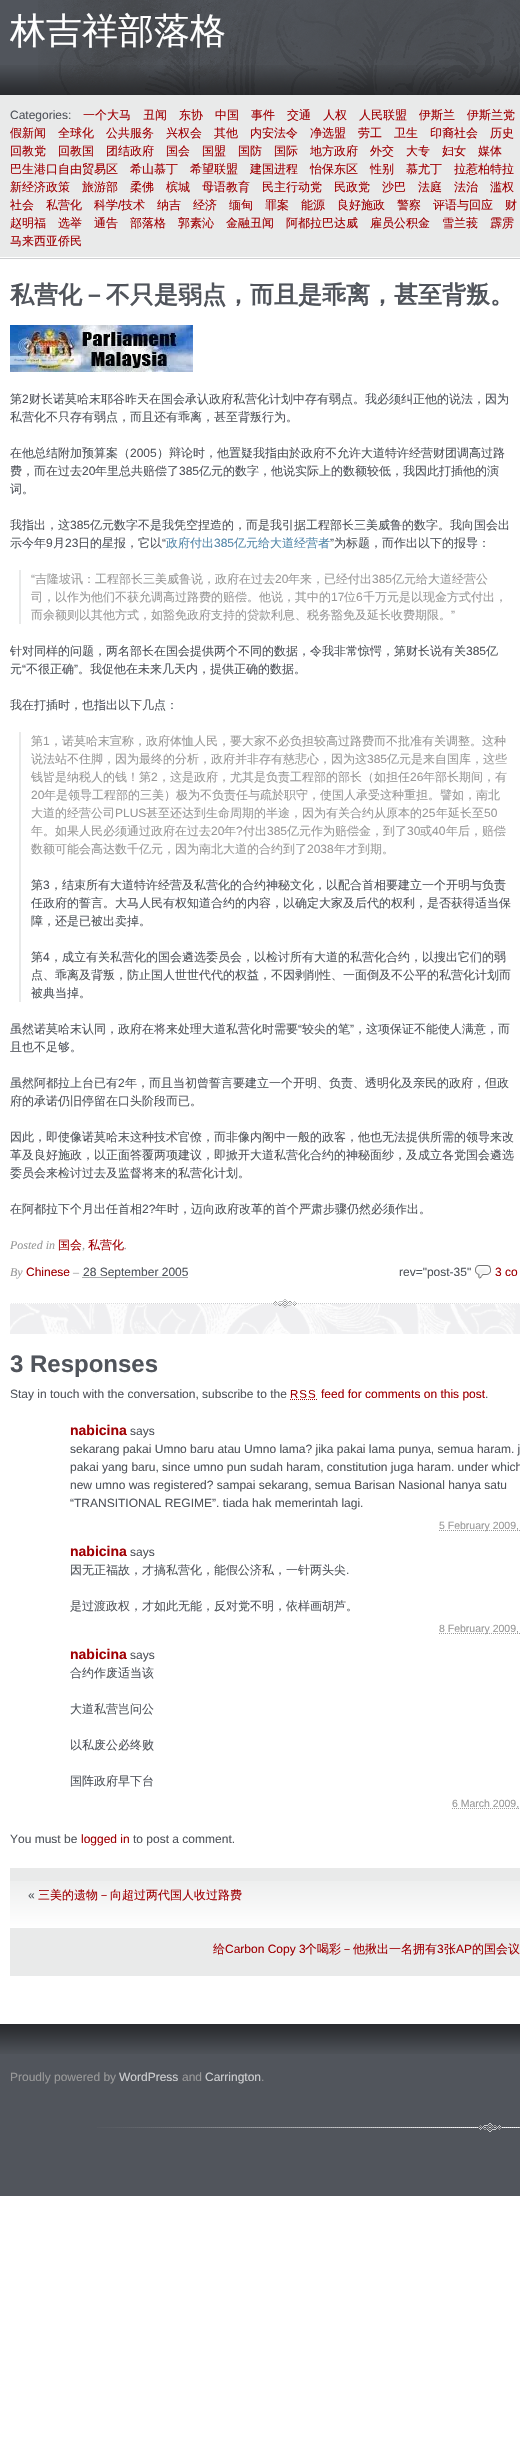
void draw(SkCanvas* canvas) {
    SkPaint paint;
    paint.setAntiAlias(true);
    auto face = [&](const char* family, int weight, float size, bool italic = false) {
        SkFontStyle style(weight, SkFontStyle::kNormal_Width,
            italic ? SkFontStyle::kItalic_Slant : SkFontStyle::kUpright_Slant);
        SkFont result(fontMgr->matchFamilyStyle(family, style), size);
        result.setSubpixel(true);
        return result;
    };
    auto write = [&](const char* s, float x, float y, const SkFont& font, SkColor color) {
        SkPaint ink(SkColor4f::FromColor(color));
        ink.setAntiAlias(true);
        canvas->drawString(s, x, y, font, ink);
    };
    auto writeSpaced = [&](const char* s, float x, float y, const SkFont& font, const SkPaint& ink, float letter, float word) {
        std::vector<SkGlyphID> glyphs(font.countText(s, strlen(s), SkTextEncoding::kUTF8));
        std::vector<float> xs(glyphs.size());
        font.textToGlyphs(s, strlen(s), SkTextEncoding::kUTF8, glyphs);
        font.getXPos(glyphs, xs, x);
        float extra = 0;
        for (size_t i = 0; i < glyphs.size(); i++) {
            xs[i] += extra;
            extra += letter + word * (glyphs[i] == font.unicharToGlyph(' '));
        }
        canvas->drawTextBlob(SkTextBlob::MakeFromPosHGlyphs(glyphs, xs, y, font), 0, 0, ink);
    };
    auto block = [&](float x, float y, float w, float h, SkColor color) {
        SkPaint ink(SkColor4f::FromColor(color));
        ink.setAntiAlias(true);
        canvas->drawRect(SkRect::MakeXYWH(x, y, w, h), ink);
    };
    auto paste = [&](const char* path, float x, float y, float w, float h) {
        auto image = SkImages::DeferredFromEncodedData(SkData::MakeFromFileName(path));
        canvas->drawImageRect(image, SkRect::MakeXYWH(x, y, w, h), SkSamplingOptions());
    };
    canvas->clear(SK_ColorWHITE);
    block(0, 0, 520, 95, SkColorSetRGB(81, 85, 92));
    paste("pic1.png", 0, 65, 520, 30);
    paste("pic2.png", 38, 0, 482, 95);
    auto kFont1 = face("WenQuanYi Zen Hei", 500, 36);
    write("林吉祥部落格", 10, 43, kFont1, SK_ColorWHITE);
    block(0, 95, 520, 162, SkColorSetRGB(233, 234, 234));
    paste("pic3.png", 0, 257, 520, 2);
    auto kFont2 = face("WenQuanYi Zen Hei", 500, 12);
    write("一个大马", 83, 119, kFont2, SkColorSetRGB(160, 0, 4));
    write("丑闻", 143, 119, kFont2, SkColorSetRGB(160, 0, 4));
    write("东协", 179, 119, kFont2, SkColorSetRGB(160, 0, 4));
    write("中国", 215, 119, kFont2, SkColorSetRGB(160, 0, 4));
    write("事件", 251, 119, kFont2, SkColorSetRGB(160, 0, 4));
    write("交通", 287, 119, kFont2, SkColorSetRGB(160, 0, 4));
    write("人权", 323, 119, kFont2, SkColorSetRGB(160, 0, 4));
    write("人民联盟", 359, 119, kFont2, SkColorSetRGB(160, 0, 4));
    write("伊斯兰", 419, 119, kFont2, SkColorSetRGB(160, 0, 4));
    write("伊斯兰党", 467, 119, kFont2, SkColorSetRGB(160, 0, 4));
    write("假新闻", 10, 137, kFont2, SkColorSetRGB(160, 0, 4));
    write("全球化", 58, 137, kFont2, SkColorSetRGB(160, 0, 4));
    write("公共服务", 106, 137, kFont2, SkColorSetRGB(160, 0, 4));
    write("兴权会", 166, 137, kFont2, SkColorSetRGB(160, 0, 4));
    write("其他", 214, 137, kFont2, SkColorSetRGB(160, 0, 4));
    write("内安法令", 250, 137, kFont2, SkColorSetRGB(160, 0, 4));
    write("净选盟", 310, 137, kFont2, SkColorSetRGB(160, 0, 4));
    write("劳工", 358, 137, kFont2, SkColorSetRGB(160, 0, 4));
    write("卫生", 394, 137, kFont2, SkColorSetRGB(160, 0, 4));
    write("印裔社会", 430, 137, kFont2, SkColorSetRGB(160, 0, 4));
    write("历史", 490, 137, kFont2, SkColorSetRGB(160, 0, 4));
    write("回教党", 10, 155, kFont2, SkColorSetRGB(160, 0, 4));
    write("回教国", 58, 155, kFont2, SkColorSetRGB(160, 0, 4));
    write("团结政府", 106, 155, kFont2, SkColorSetRGB(160, 0, 4));
    write("国会", 166, 155, kFont2, SkColorSetRGB(160, 0, 4));
    write("国盟", 202, 155, kFont2, SkColorSetRGB(160, 0, 4));
    write("国防", 238, 155, kFont2, SkColorSetRGB(160, 0, 4));
    write("国际", 274, 155, kFont2, SkColorSetRGB(160, 0, 4));
    write("地方政府", 310, 155, kFont2, SkColorSetRGB(160, 0, 4));
    write("外交", 370, 155, kFont2, SkColorSetRGB(160, 0, 4));
    write("大专", 406, 155, kFont2, SkColorSetRGB(160, 0, 4));
    write("妇女", 442, 155, kFont2, SkColorSetRGB(160, 0, 4));
    write("媒体", 478, 155, kFont2, SkColorSetRGB(160, 0, 4));
    write("巴生港口自由贸易区", 10, 173, kFont2, SkColorSetRGB(160, 0, 4));
    write("希山慕丁", 130, 173, kFont2, SkColorSetRGB(160, 0, 4));
    write("希望联盟", 190, 173, kFont2, SkColorSetRGB(160, 0, 4));
    write("建国进程", 250, 173, kFont2, SkColorSetRGB(160, 0, 4));
    write("怡保东区", 310, 173, kFont2, SkColorSetRGB(160, 0, 4));
    write("性别", 370, 173, kFont2, SkColorSetRGB(160, 0, 4));
    write("慕尤丁", 406, 173, kFont2, SkColorSetRGB(160, 0, 4));
    write("拉惹柏特拉", 454, 173, kFont2, SkColorSetRGB(160, 0, 4));
    write("新经济政策", 10, 191, kFont2, SkColorSetRGB(160, 0, 4));
    write("旅游部", 82, 191, kFont2, SkColorSetRGB(160, 0, 4));
    write("柔佛", 130, 191, kFont2, SkColorSetRGB(160, 0, 4));
    write("槟城", 166, 191, kFont2, SkColorSetRGB(160, 0, 4));
    write("母语教育", 202, 191, kFont2, SkColorSetRGB(160, 0, 4));
    write("民主行动党", 262, 191, kFont2, SkColorSetRGB(160, 0, 4));
    write("民政党", 334, 191, kFont2, SkColorSetRGB(160, 0, 4));
    write("沙巴", 382, 191, kFont2, SkColorSetRGB(160, 0, 4));
    write("法庭", 418, 191, kFont2, SkColorSetRGB(160, 0, 4));
    write("法治", 454, 191, kFont2, SkColorSetRGB(160, 0, 4));
    write("滥权", 490, 191, kFont2, SkColorSetRGB(160, 0, 4));
    write("社会", 10, 209, kFont2, SkColorSetRGB(160, 0, 4));
    write("私营化", 46, 209, kFont2, SkColorSetRGB(160, 0, 4));
    write("科学", 94, 209, kFont2, SkColorSetRGB(160, 0, 4));
    auto kFont3 = face("Liberation Sans", 400, 12);
    write("/", 118, 209, kFont3, SkColorSetRGB(160, 0, 4));
    write("技术", 121, 209, kFont2, SkColorSetRGB(160, 0, 4));
    write("纳吉", 157, 209, kFont2, SkColorSetRGB(160, 0, 4));
    write("经济", 193, 209, kFont2, SkColorSetRGB(160, 0, 4));
    write("缅甸", 229, 209, kFont2, SkColorSetRGB(160, 0, 4));
    write("罪案", 265, 209, kFont2, SkColorSetRGB(160, 0, 4));
    write("能源", 301, 209, kFont2, SkColorSetRGB(160, 0, 4));
    write("良好施政", 337, 209, kFont2, SkColorSetRGB(160, 0, 4));
    write("警察", 397, 209, kFont2, SkColorSetRGB(160, 0, 4));
    write("评语与回应", 433, 209, kFont2, SkColorSetRGB(160, 0, 4));
    write("财", 505, 209, kFont2, SkColorSetRGB(160, 0, 4));
    write("赵明福", 10, 227, kFont2, SkColorSetRGB(160, 0, 4));
    write("选举", 58, 227, kFont2, SkColorSetRGB(160, 0, 4));
    write("通告", 94, 227, kFont2, SkColorSetRGB(160, 0, 4));
    write("部落格", 130, 227, kFont2, SkColorSetRGB(160, 0, 4));
    write("郭素沁", 178, 227, kFont2, SkColorSetRGB(160, 0, 4));
    write("金融丑闻", 226, 227, kFont2, SkColorSetRGB(160, 0, 4));
    write("阿都拉巴达威", 286, 227, kFont2, SkColorSetRGB(160, 0, 4));
    write("雇员公积金", 370, 227, kFont2, SkColorSetRGB(160, 0, 4));
    write("雪兰莪", 442, 227, kFont2, SkColorSetRGB(160, 0, 4));
    write("霹雳", 490, 227, kFont2, SkColorSetRGB(160, 0, 4));
    write("马来西亚侨民", 10, 245, kFont2, SkColorSetRGB(160, 0, 4));
    write("Categories:", 10, 119, kFont3, SkColorSetRGB(81, 85, 92));
    auto kFont4 = face("WenQuanYi Zen Hei", 700, 24);
    write("私营化－不只是弱点，而且是乖离，甚至背叛。", 10, 303, kFont4, SkColorSetRGB(81, 85, 92));
    paste("pic4.png", 10, 325, 183, 47);
    write("第", 10, 403, kFont2, SkColorSetRGB(81, 85, 92));
    write("2", 22, 403, kFont3, SkColorSetRGB(81, 85, 92));
    write("财长诺莫哈末耶谷昨天在国会承认政府私营化计划中存有弱点。我必须纠正他的说法，因为", 29, 403, kFont2, SkColorSetRGB(81, 85, 92));
    write("私营化不只存有弱点，而且还有乖离，甚至背叛行为。", 10, 421, kFont2, SkColorSetRGB(81, 85, 92));
    write("在他总结附加预算案（", 10, 457, kFont2, SkColorSetRGB(81, 85, 92));
    write("2005", 130, 457, kFont3, SkColorSetRGB(81, 85, 92));
    write("）辩论时，他置疑我指由於政府不允许大道特许经营财团调高过路", 157, 457, kFont2, SkColorSetRGB(81, 85, 92));
    write("费，而在过去", 10, 475, kFont2, SkColorSetRGB(81, 85, 92));
    write("20", 82, 475, kFont3, SkColorSetRGB(81, 85, 92));
    write("年里总共赔偿了", 95, 475, kFont2, SkColorSetRGB(81, 85, 92));
    write("385", 179, 475, kFont3, SkColorSetRGB(81, 85, 92));
    write("亿元的数字，他说实际上的数额较低，我因此打插他的演", 199, 475, kFont2, SkColorSetRGB(81, 85, 92));
    write("词。", 10, 493, kFont2, SkColorSetRGB(81, 85, 92));
    write("我指出，这", 10, 529, kFont2, SkColorSetRGB(81, 85, 92));
    write("385", 70, 529, kFont3, SkColorSetRGB(81, 85, 92));
    write("亿元数字不是我凭空捏造的，而是我引据工程部长三美威鲁的数字。我向国会出", 90, 529, kFont2, SkColorSetRGB(81, 85, 92));
    write("示今年", 10, 547, kFont2, SkColorSetRGB(81, 85, 92));
    write("9", 46, 547, kFont3, SkColorSetRGB(81, 85, 92));
    write("月", 53, 547, kFont2, SkColorSetRGB(81, 85, 92));
    write("23", 65, 547, kFont3, SkColorSetRGB(81, 85, 92));
    write("日的星报，它以", 78, 547, kFont2, SkColorSetRGB(81, 85, 92));
    write("“", 162, 547, kFont3, SkColorSetRGB(81, 85, 92));
    write("政府付出", 166, 547, kFont2, SkColorSetRGB(85, 136, 170));
    write("385", 214, 547, kFont3, SkColorSetRGB(85, 136, 170));
    write("亿元给大道经营者", 234, 547, kFont2, SkColorSetRGB(85, 136, 170));
    write("”", 330, 547, kFont3, SkColorSetRGB(81, 85, 92));
    write("为标题，而作出以下的报导：", 334, 547, kFont2, SkColorSetRGB(81, 85, 92));
    block(19, 570, 2, 54, SkColorSetRGB(233, 234, 234));
    write("“", 31, 583, kFont3, SkColorSetRGB(153, 153, 153));
    write("吉隆坡讯：工程部长三美威鲁说，政府在过去", 35, 583, kFont2, SkColorSetRGB(153, 153, 153));
    write("20", 275, 583, kFont3, SkColorSetRGB(153, 153, 153));
    write("年来，已经付出", 288, 583, kFont2, SkColorSetRGB(153, 153, 153));
    write("385", 372, 583, kFont3, SkColorSetRGB(153, 153, 153));
    write("亿元给大道经营公", 392, 583, kFont2, SkColorSetRGB(153, 153, 153));
    write("司，以作为他们不获允调高过路费的赔偿。他说，其中的", 31, 601, kFont2, SkColorSetRGB(153, 153, 153));
    write("17", 331, 601, kFont3, SkColorSetRGB(153, 153, 153));
    write("位", 344, 601, kFont2, SkColorSetRGB(153, 153, 153));
    write("6", 356, 601, kFont3, SkColorSetRGB(153, 153, 153));
    write("千万元是以现金方式付出，", 363, 601, kFont2, SkColorSetRGB(153, 153, 153));
    write("而余额则以其他方式，如豁免政府支持的贷款利息、税务豁免及延长收费期限。", 31, 619, kFont2, SkColorSetRGB(153, 153, 153));
    write("”", 451, 619, kFont3, SkColorSetRGB(153, 153, 153));
    write("针对同样的问题，两名部长在国会提供两个不同的数据，令我非常惊愕，第财长说有关", 10, 655, kFont2, SkColorSetRGB(81, 85, 92));
    write("385", 466, 655, kFont3, SkColorSetRGB(81, 85, 92));
    write("亿", 486, 655, kFont2, SkColorSetRGB(81, 85, 92));
    write("元", 10, 673, kFont2, SkColorSetRGB(81, 85, 92));
    write("“", 22, 673, kFont3, SkColorSetRGB(81, 85, 92));
    write("不很正确", 26, 673, kFont2, SkColorSetRGB(81, 85, 92));
    write("”", 74, 673, kFont3, SkColorSetRGB(81, 85, 92));
    write("。我促他在未来几天内，提供正确的数据。", 78, 673, kFont2, SkColorSetRGB(81, 85, 92));
    write("我在打插时，也指出以下几点：", 10, 709, kFont2, SkColorSetRGB(81, 85, 92));
    block(19, 732, 2, 270, SkColorSetRGB(233, 234, 234));
    write("第", 31, 745, kFont2, SkColorSetRGB(153, 153, 153));
    write("1", 43, 745, kFont3, SkColorSetRGB(153, 153, 153));
    write("，诺莫哈末宣称，政府体恤人民，要大家不必负担较高过路费而不批准有关调整。这种", 50, 745, kFont2, SkColorSetRGB(153, 153, 153));
    write("说法站不住脚，因为最终的分析，政府并非存有慈悲心，因为这", 31, 763, kFont2, SkColorSetRGB(153, 153, 153));
    write("385", 367, 763, kFont3, SkColorSetRGB(153, 153, 153));
    write("亿元是来自国库，这些", 387, 763, kFont2, SkColorSetRGB(153, 153, 153));
    write("钱皆是纳税人的钱！第", 31, 781, kFont2, SkColorSetRGB(153, 153, 153));
    write("2", 151, 781, kFont3, SkColorSetRGB(153, 153, 153));
    write("，这是政府，尤其是负责工程部的部长（如担任", 158, 781, kFont2, SkColorSetRGB(153, 153, 153));
    write("26", 410, 781, kFont3, SkColorSetRGB(153, 153, 153));
    write("年部长期间，有", 423, 781, kFont2, SkColorSetRGB(153, 153, 153));
    write("20", 31, 799, kFont3, SkColorSetRGB(153, 153, 153));
    write("年是领导工程部的三美）极为不负责任与疏於职守，使国人承受这种重担。譬如，南北", 44, 799, kFont2, SkColorSetRGB(153, 153, 153));
    write("大道的经营公司", 31, 817, kFont2, SkColorSetRGB(153, 153, 153));
    write("PLUS", 115, 817, kFont3, SkColorSetRGB(153, 153, 153));
    write("甚至还达到生命周期的半途，因为有关合约从原本的", 146, 817, kFont2, SkColorSetRGB(153, 153, 153));
    write("25", 422, 817, kFont3, SkColorSetRGB(153, 153, 153));
    write("年延长至", 436, 817, kFont2, SkColorSetRGB(153, 153, 153));
    write("50", 484, 817, kFont3, SkColorSetRGB(153, 153, 153));
    write("年。如果人民必须通过政府在过去", 31, 835, kFont2, SkColorSetRGB(153, 153, 153));
    write("20", 211, 835, kFont3, SkColorSetRGB(153, 153, 153));
    write("年", 224, 835, kFont2, SkColorSetRGB(153, 153, 153));
    write("?", 236, 835, kFont3, SkColorSetRGB(153, 153, 153));
    write("付出", 243, 835, kFont2, SkColorSetRGB(153, 153, 153));
    write("385", 267, 835, kFont3, SkColorSetRGB(153, 153, 153));
    write("亿元作为赔偿金，到了", 287, 835, kFont2, SkColorSetRGB(153, 153, 153));
    write("30", 407, 835, kFont3, SkColorSetRGB(153, 153, 153));
    write("或", 420, 835, kFont2, SkColorSetRGB(153, 153, 153));
    write("40", 432, 835, kFont3, SkColorSetRGB(153, 153, 153));
    write("年后，赔偿", 446, 835, kFont2, SkColorSetRGB(153, 153, 153));
    write("数额可能会高达数千亿元，因为南北大道的合约到了", 31, 853, kFont2, SkColorSetRGB(153, 153, 153));
    write("2038", 307, 853, kFont3, SkColorSetRGB(153, 153, 153));
    write("年才到期。", 334, 853, kFont2, SkColorSetRGB(153, 153, 153));
    write("第", 31, 889, kFont2, SkColorSetRGB(81, 85, 92));
    write("3", 43, 889, kFont3, SkColorSetRGB(81, 85, 92));
    write("，结束所有大道特许经营及私营化的合约神秘文化，以配合首相要建立一个开明与负责", 50, 889, kFont2, SkColorSetRGB(81, 85, 92));
    write("任政府的誓言。大马人民有权知道合约的内容，以确定大家及后代的权利，是否获得适当保", 31, 907, kFont2, SkColorSetRGB(81, 85, 92));
    write("障，还是已被出卖掉。", 31, 925, kFont2, SkColorSetRGB(81, 85, 92));
    write("第", 31, 961, kFont2, SkColorSetRGB(81, 85, 92));
    write("4", 43, 961, kFont3, SkColorSetRGB(81, 85, 92));
    write("，成立有关私营化的国会遴选委员会，以检讨所有大道的私营化合约，以搜出它们的弱", 50, 961, kFont2, SkColorSetRGB(81, 85, 92));
    write("点、乖离及背叛，防止国人世世代代的权益，不因剥削性、一面倒及不公平的私营化计划而", 31, 979, kFont2, SkColorSetRGB(81, 85, 92));
    write("被典当掉。", 31, 997, kFont2, SkColorSetRGB(81, 85, 92));
    write("虽然诺莫哈末认同，政府在将来处理大道私营化时需要", 10, 1033, kFont2, SkColorSetRGB(81, 85, 92));
    write("“", 298, 1033, kFont3, SkColorSetRGB(81, 85, 92));
    write("较尖的笔", 302, 1033, kFont2, SkColorSetRGB(81, 85, 92));
    write("”", 350, 1033, kFont3, SkColorSetRGB(81, 85, 92));
    write("，这项保证不能使人满意，而", 354, 1033, kFont2, SkColorSetRGB(81, 85, 92));
    write("且也不足够。", 10, 1051, kFont2, SkColorSetRGB(81, 85, 92));
    write("虽然阿都拉上台已有", 10, 1087, kFont2, SkColorSetRGB(81, 85, 92));
    write("2", 118, 1087, kFont3, SkColorSetRGB(81, 85, 92));
    write("年，而且当初曾誓言要建立一个开明、负责、透明化及亲民的政府，但政", 125, 1087, kFont2, SkColorSetRGB(81, 85, 92));
    write("府的承诺仍旧停留在口头阶段而已。", 10, 1105, kFont2, SkColorSetRGB(81, 85, 92));
    write("因此，即使像诺莫哈末这种技术官僚，而非像内阁中一般的政客，他也无法提供所需的领导来改", 10, 1141, kFont2, SkColorSetRGB(81, 85, 92));
    write("革及良好施政，以正面答覆两项建议，即掀开大道私营化合约的神秘面纱，及成立各党国会遴选", 10, 1159, kFont2, SkColorSetRGB(81, 85, 92));
    write("委员会来检讨过去及监督将来的私营化计划。", 10, 1177, kFont2, SkColorSetRGB(81, 85, 92));
    write("在阿都拉下个月出任首相", 10, 1213, kFont2, SkColorSetRGB(81, 85, 92));
    write("2?", 142, 1213, kFont3, SkColorSetRGB(81, 85, 92));
    write("年时，迈向政府改革的首个严肃步骤仍然必须作出。", 155, 1213, kFont2, SkColorSetRGB(81, 85, 92));
    auto kFont5 = face("Liberation Serif", 400, 12, true);
    write("Posted in", 10, 1249, kFont5, SkColorSetRGB(153, 153, 153));
    write("国会", 58, 1249, kFont2, SkColorSetRGB(160, 0, 4));
    write(",", 82, 1249, kFont5, SkColorSetRGB(153, 153, 153));
    write("私营化", 88, 1249, kFont2, SkColorSetRGB(160, 0, 4));
    write(".", 124, 1249, kFont5, SkColorSetRGB(153, 153, 153));
    write("By", 10, 1276, kFont5, SkColorSetRGB(153, 153, 153));
    write("Chinese", 26, 1276, kFont3, SkColorSetRGB(160, 0, 4));
    write("–", 73, 1276, kFont5, SkColorSetRGB(153, 153, 153));
    paint.setStyle(SkPaint::kStroke_Style);
    paint.setStrokeWidth(1);
    paint.setColor(SkColorSetRGB(81, 85, 92));
    paint.setPathEffect(SkDashPathEffect::Make({{1, 1}}, 0));
    canvas->drawPath(SkPathBuilder().moveTo(82.5f, 1277.5f).lineTo(188, 1277.5f).detach(), paint);
    paint.setPathEffect(nullptr);
    write("28 September 2005", 83, 1276, kFont3, SkColorSetRGB(81, 85, 92));
    write("rev=\"post-35\"", 399, 1276, kFont3, SkColorSetRGB(81, 85, 92));
    paste("pic5.png", 475, 1265, 16, 14);
    write("3 co", 495, 1276, kFont3, SkColorSetRGB(160, 0, 4));
    paste("pic6.png", 10, 1299, 510, 35);
    auto kFont6 = face("Liberation Sans", 700, 24);
    write("3 Responses", 10, 1372, kFont6, SkColorSetRGB(81, 85, 92));
    write("Stay in touch with the conversation, subscribe to the", 10, 1398, kFont3, SkColorSetRGB(81, 85, 92));
    auto kFont7 = face("Liberation Sans", 400, 11.5f);
    paint.setStyle(SkPaint::kFill_Style);
    paint.setColor(SkColorSetRGB(160, 0, 4));
    writeSpaced("RSS", 290, 1398, kFont7, paint, 1, 0);
    paint.setStyle(SkPaint::kStroke_Style);
    paint.setPathEffect(SkDashPathEffect::Make({{1, 1}}, 0));
    canvas->drawPath(SkPathBuilder().moveTo(290, 1399.5f).lineTo(317.5f, 1399.5f).detach(), paint);
    paint.setPathEffect(nullptr);
    write("feed for comments on this post", 321, 1398, kFont3, SkColorSetRGB(160, 0, 4));
    write(".", 485, 1398, kFont3, SkColorSetRGB(81, 85, 92));
    auto kFont8 = face("Liberation Sans", 700, 14);
    write("nabicina", 70, 1435, kFont8, SkColorSetRGB(160, 0, 4));
    write("says", 130, 1435, kFont3, SkColorSetRGB(81, 85, 92));
    write("sekarang pakai Umno baru atau Umno lama? jika pakai lama punya, semua haram. j", 70, 1453, kFont3, SkColorSetRGB(81, 85, 92));
    write("pakai yang baru, since umno pun sudah haram, constitution juga haram. under which", 70, 1471, kFont3, SkColorSetRGB(81, 85, 92));
    write("new umno was registered? sampai sekarang, semua Barisan Nasional hanya satu", 70, 1489, kFont3, SkColorSetRGB(81, 85, 92));
    write("“TRANSITIONAL REGIME”. tiada hak memerintah lagi.", 70, 1507, kFont3, SkColorSetRGB(81, 85, 92));
    paint.setColor(SkColorSetRGB(153, 153, 153));
    paint.setPathEffect(SkDashPathEffect::Make({{1, 1}}, 0));
    canvas->drawPath(SkPathBuilder().moveTo(439, 1530.5f).lineTo(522, 1530.5f).detach(), paint);
    paint.setPathEffect(nullptr);
    auto kFont9 = face("Liberation Sans", 400, 10.5f);
    write("5 February 2009,", 439, 1529, kFont9, SkColorSetRGB(153, 153, 153));
    write("nabicina", 70, 1556, kFont8, SkColorSetRGB(160, 0, 4));
    write("says", 130, 1556, kFont3, SkColorSetRGB(81, 85, 92));
    write("因无正福故，才搞私营化，能假公济私，一针两头尖", 70, 1574, kFont2, SkColorSetRGB(81, 85, 92));
    write(".", 346, 1574, kFont3, SkColorSetRGB(81, 85, 92));
    write("是过渡政权，才如此无能，反对党不明，依样画胡芦。", 70, 1610, kFont2, SkColorSetRGB(81, 85, 92));
    paint.setPathEffect(SkDashPathEffect::Make({{1, 1}}, 0));
    canvas->drawPath(SkPathBuilder().moveTo(439, 1633.5f).lineTo(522, 1633.5f).detach(), paint);
    paint.setPathEffect(nullptr);
    write("8 February 2009,", 439, 1632, kFont9, SkColorSetRGB(153, 153, 153));
    write("nabicina", 70, 1659, kFont8, SkColorSetRGB(160, 0, 4));
    write("says", 130, 1659, kFont3, SkColorSetRGB(81, 85, 92));
    write("合约作废适当该", 70, 1677, kFont2, SkColorSetRGB(81, 85, 92));
    write("大道私营岂问公", 70, 1713, kFont2, SkColorSetRGB(81, 85, 92));
    write("以私废公必终败", 70, 1749, kFont2, SkColorSetRGB(81, 85, 92));
    write("国阵政府早下台", 70, 1785, kFont2, SkColorSetRGB(81, 85, 92));
    paint.setPathEffect(SkDashPathEffect::Make({{1, 1}}, 0));
    canvas->drawPath(SkPathBuilder().moveTo(452, 1808.5f).lineTo(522, 1808.5f).detach(), paint);
    paint.setPathEffect(nullptr);
    write("6 March 2009,", 452, 1807, kFont9, SkColorSetRGB(153, 153, 153));
    write("You must be", 10, 1843, kFont3, SkColorSetRGB(81, 85, 92));
    write("logged in", 81, 1843, kFont3, SkColorSetRGB(160, 0, 4));
    write("to post a comment.", 133, 1843, kFont3, SkColorSetRGB(81, 85, 92));
    block(10, 1868, 510, 108, SkColorSetRGB(233, 234, 234));
    paste("pic7.png", 10, 1881, 510, 47);
    write("«", 28, 1899, kFont3, SkColorSetRGB(81, 85, 92));
    write("三美的遗物－向超过两代国人收过路费", 38, 1899, kFont2, SkColorSetRGB(160, 0, 4));
    write("给", 213, 1953, kFont2, SkColorSetRGB(160, 0, 4));
    write("Carbon Copy 3", 225, 1953, kFont3, SkColorSetRGB(160, 0, 4));
    write("个喝彩－他揪出一名拥有", 305, 1953, kFont2, SkColorSetRGB(160, 0, 4));
    write("3", 437, 1953, kFont3, SkColorSetRGB(160, 0, 4));
    write("张", 444, 1953, kFont2, SkColorSetRGB(160, 0, 4));
    write("AP", 456, 1953, kFont3, SkColorSetRGB(160, 0, 4));
    write("的国会议", 472, 1953, kFont2, SkColorSetRGB(160, 0, 4));
    block(0, 2024, 520, 172, SkColorSetRGB(81, 85, 92));
    paste("pic8.png", 0, 2024, 520, 30);
    paste("pic9.png", 97, 2123, 423, 9);
    write("Proudly powered by", 10, 2081, kFont3, SkColorSetRGB(153, 153, 153));
    write("WordPress", 119, 2081, kFont3, SkColorSetRGB(206, 207, 209));
    write("and", 182, 2081, kFont3, SkColorSetRGB(153, 153, 153));
    write("Carrington", 205, 2081, kFont3, SkColorSetRGB(206, 207, 209));
    write(".", 261, 2081, kFont3, SkColorSetRGB(153, 153, 153));
}
